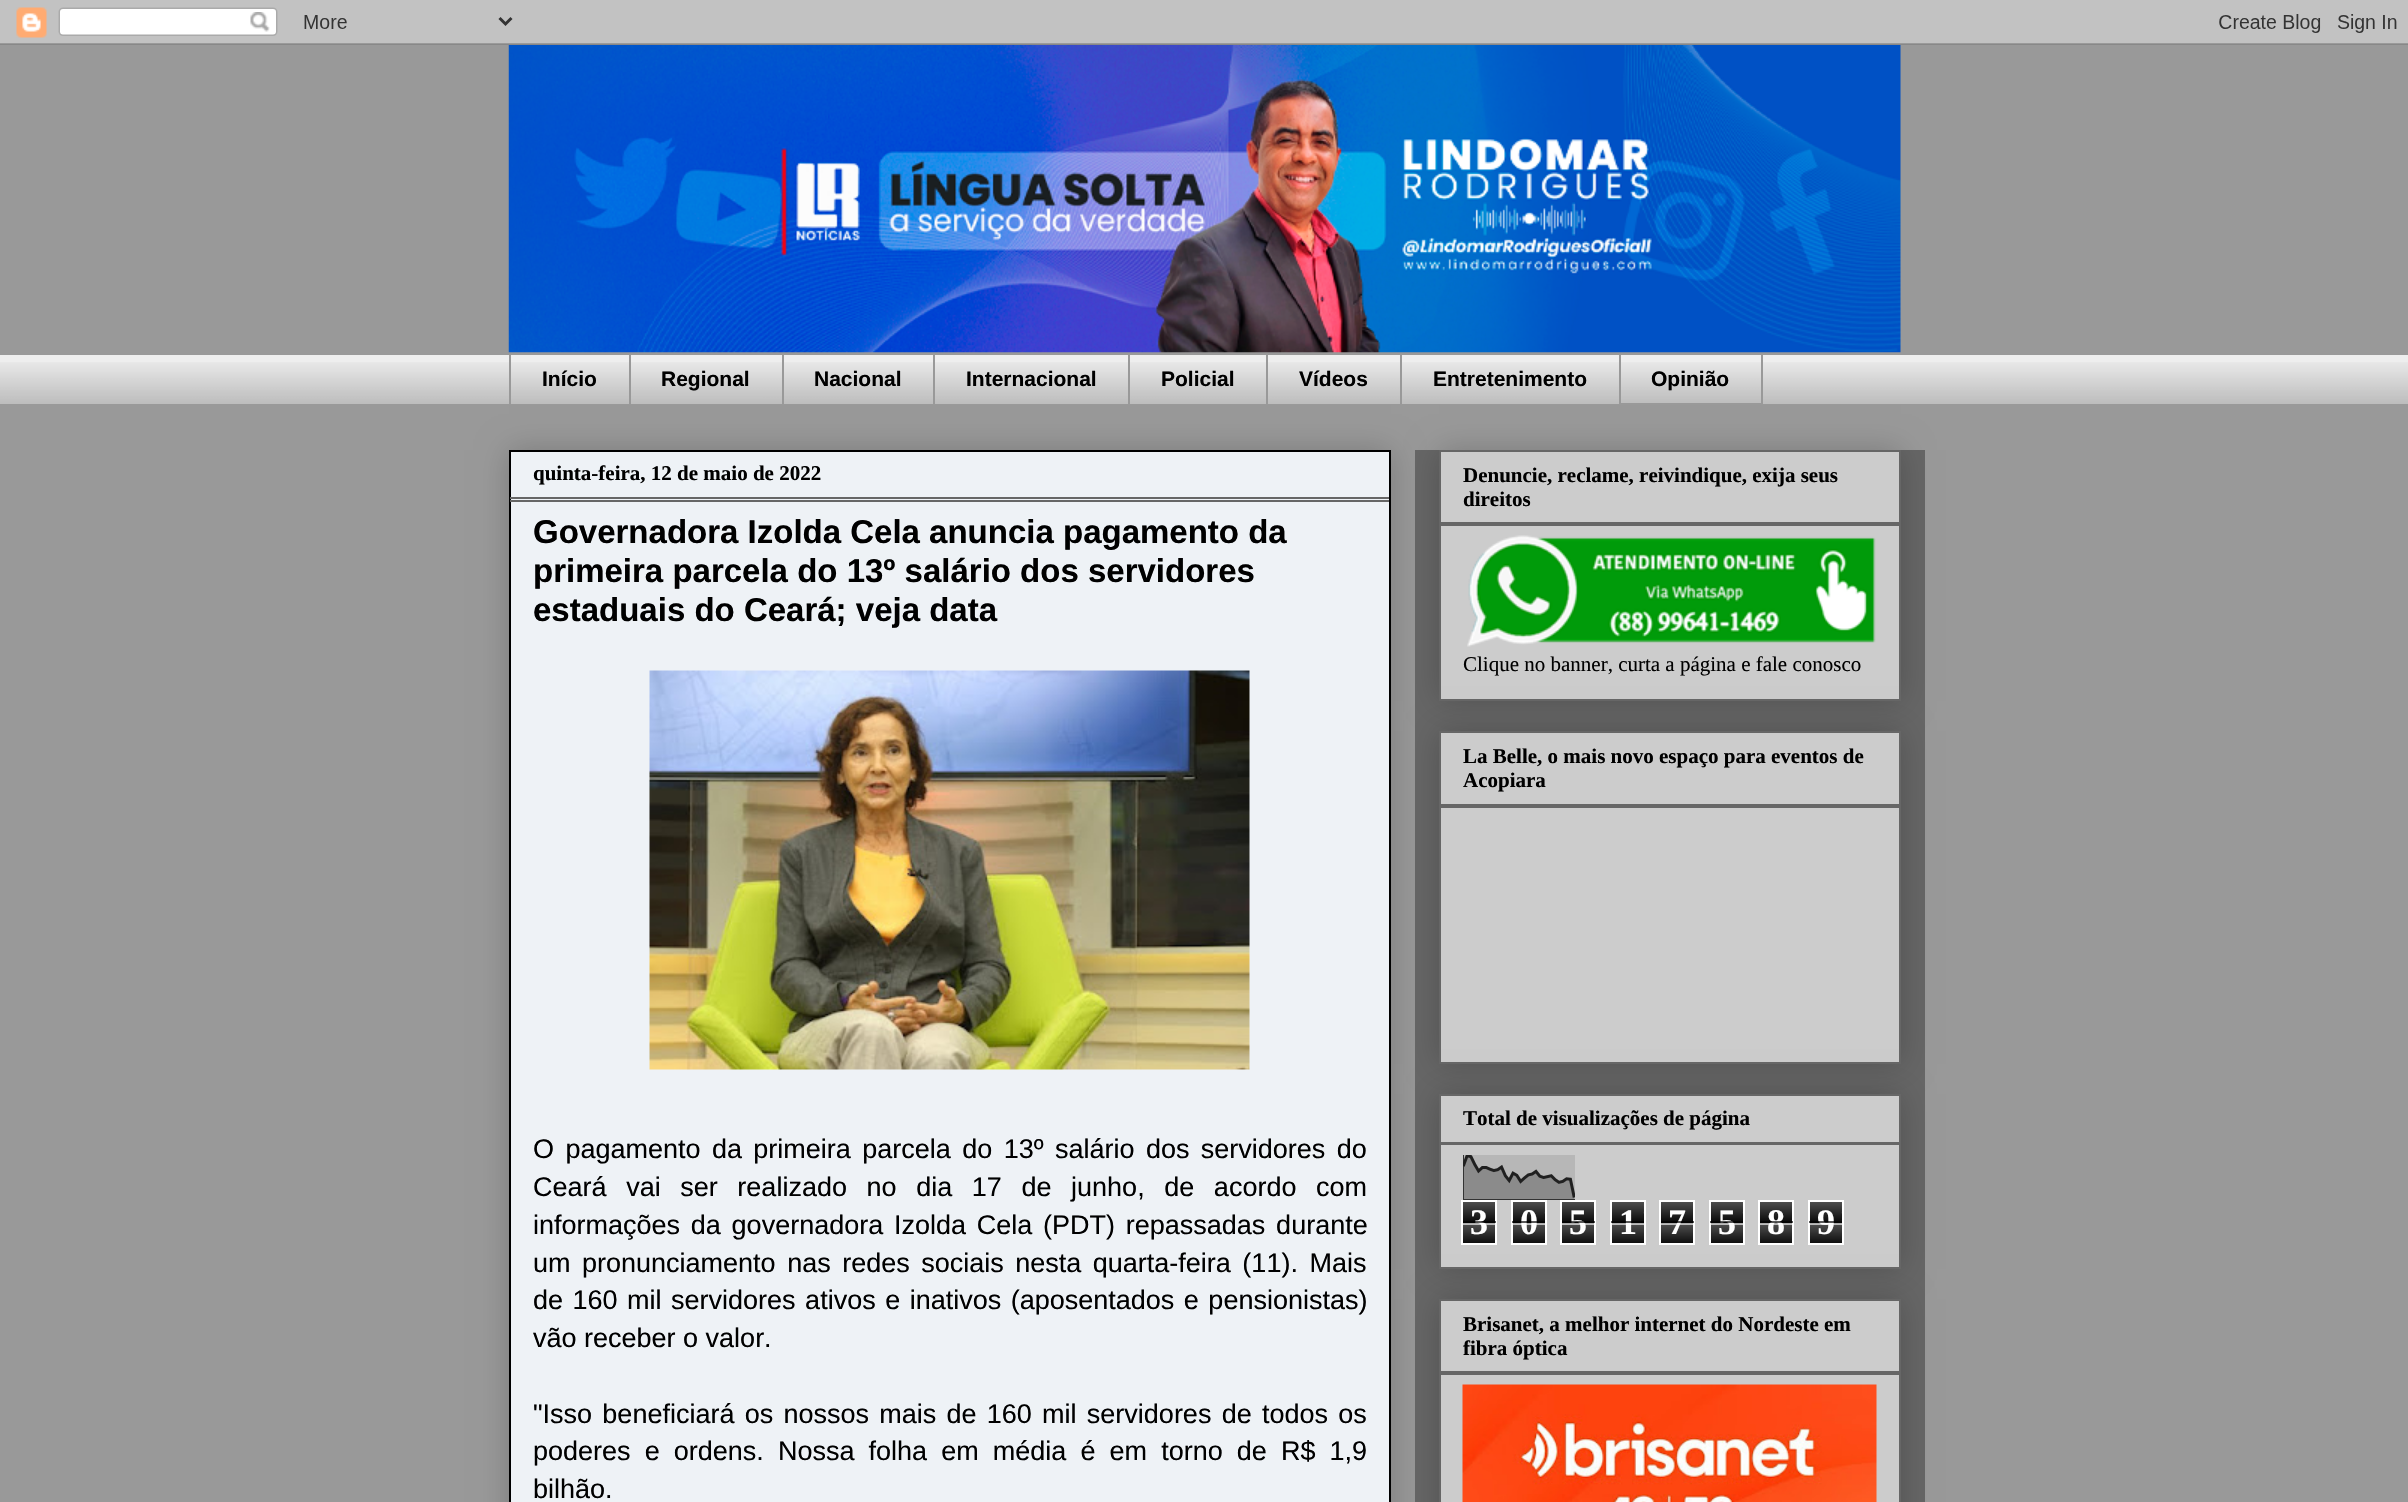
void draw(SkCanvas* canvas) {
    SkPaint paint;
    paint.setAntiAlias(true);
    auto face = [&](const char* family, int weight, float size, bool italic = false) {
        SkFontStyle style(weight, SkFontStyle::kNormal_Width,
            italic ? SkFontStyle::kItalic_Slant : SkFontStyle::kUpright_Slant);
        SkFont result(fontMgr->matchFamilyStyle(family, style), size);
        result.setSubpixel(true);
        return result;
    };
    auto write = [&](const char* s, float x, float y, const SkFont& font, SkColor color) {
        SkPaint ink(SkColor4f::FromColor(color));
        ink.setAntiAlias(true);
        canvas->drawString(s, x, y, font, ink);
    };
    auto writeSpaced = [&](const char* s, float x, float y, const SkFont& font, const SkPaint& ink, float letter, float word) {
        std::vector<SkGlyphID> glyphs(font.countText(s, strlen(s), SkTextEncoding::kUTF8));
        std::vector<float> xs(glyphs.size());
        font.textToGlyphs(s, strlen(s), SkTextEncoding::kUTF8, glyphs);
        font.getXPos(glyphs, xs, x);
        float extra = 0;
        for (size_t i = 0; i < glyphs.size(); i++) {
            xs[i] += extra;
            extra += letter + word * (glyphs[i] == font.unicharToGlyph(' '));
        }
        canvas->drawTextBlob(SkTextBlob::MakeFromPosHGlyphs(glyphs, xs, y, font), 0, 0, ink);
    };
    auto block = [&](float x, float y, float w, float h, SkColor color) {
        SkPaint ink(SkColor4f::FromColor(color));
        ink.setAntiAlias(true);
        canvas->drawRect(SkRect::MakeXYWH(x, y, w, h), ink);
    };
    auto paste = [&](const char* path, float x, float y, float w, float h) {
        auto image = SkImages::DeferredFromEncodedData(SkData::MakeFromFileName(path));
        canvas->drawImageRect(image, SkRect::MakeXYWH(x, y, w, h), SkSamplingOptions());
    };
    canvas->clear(SkColorSetRGB(153, 153, 153));
    paste("pic1.png", 0, 0, 2408, 45);
    paste("pic2.png", 508, 45, 1393, 308);
    block(0, 355, 2408, 49, SkColorSetRGB(238, 238, 238));
    paste("pic3.png", 0, 362, 2408, 42);
    block(509, 353, 2, 52, SkColorSetRGB(153, 153, 153));
    auto kFont1 = face("Liberation Sans", 700, 21);
    write("Início", 542, 386, kFont1, SK_ColorBLACK);
    block(629, 353, 2, 52, SkColorSetRGB(153, 153, 153));
    write("Regional", 661, 386, kFont1, SK_ColorBLACK);
    block(782, 353, 2, 52, SkColorSetRGB(153, 153, 153));
    write("Nacional", 814, 386, kFont1, SK_ColorBLACK);
    block(933, 353, 2, 52, SkColorSetRGB(153, 153, 153));
    write("Internacional", 966, 386, kFont1, SK_ColorBLACK);
    block(1128, 353, 2, 52, SkColorSetRGB(153, 153, 153));
    write("Policial", 1161, 386, kFont1, SK_ColorBLACK);
    block(1266, 353, 2, 52, SkColorSetRGB(153, 153, 153));
    write("Vídeos", 1299, 386, kFont1, SK_ColorBLACK);
    block(1400, 353, 2, 52, SkColorSetRGB(153, 153, 153));
    write("Entretenimento", 1433, 386, kFont1, SK_ColorBLACK);
    paint.setStyle(SkPaint::kStroke_Style);
    paint.setStrokeWidth(2);
    paint.setColor(SkColorSetRGB(153, 153, 153));
    canvas->drawRect(SkRect::MakeXYWH(1620, 354, 142, 50), paint);
    write("Opinião", 1651, 386, kFont1, SK_ColorBLACK);
    paint.setStyle(SkPaint::kFill_Style);
    paint.setColor(SkColorSetARGB(51, 0, 0, 0));
    paint.setMaskFilter(SkMaskFilter::MakeBlur(kNormal_SkBlurStyle, 15));
    canvas->drawRect(SkRect::MakeXYWH(509, 450, 882, 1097), paint);
    paint.setMaskFilter(nullptr);
    paint.setColor(SkColorSetRGB(238, 242, 246));
    canvas->drawRect(SkRect::MakeXYWH(510, 451, 880, 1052), paint);
    paint.setStyle(SkPaint::kStroke_Style);
    paint.setColor(SK_ColorBLACK);
    canvas->drawRect(SkRect::MakeXYWH(510, 451, 880, 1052), paint);
    block(510, 497, 879, 2, SkColorSetRGB(102, 102, 102));
    auto kFont2 = face("Liberation Serif", 700, 21);
    write("quinta-feira, 12 de maio de 2022", 533, 480, kFont2, SK_ColorBLACK);
    block(510, 500, 879, 2, SkColorSetRGB(102, 102, 102));
    auto kFont3 = face("Liberation Sans", 700, 33);
    write("Governadora Izolda Cela anuncia pagamento da", 533, 543, kFont3, SK_ColorBLACK);
    write("primeira parcela do 13º salário dos servidores", 533, 582, kFont3, SK_ColorBLACK);
    write("estaduais do Ceará; veja data", 533, 621, kFont3, SK_ColorBLACK);
    paste("pic4.png", 649, 670, 601, 400);
    auto kFont4 = face("Liberation Sans", 400, 27);
    paint.setStyle(SkPaint::kFill_Style);
    writeSpaced("O pagamento da primeira parcela do 13º salário dos servidores do", 533, 1158, kFont4, paint, 0, 3.9f);
    writeSpaced("Ceará vai ser realizado no dia 17 de junho, de acordo com", 533, 1196, kFont4, paint, 0, 12.1f);
    writeSpaced("informações da governadora Izolda Cela (PDT) repassadas durante", 533, 1234, kFont4, paint, 0, 3.25f);
    writeSpaced("um pronunciamento nas redes sociais nesta quarta-feira (11). Mais", 533, 1272, kFont4, paint, 0, 4);
    writeSpaced("de 160 mil servidores ativos e inativos (aposentados e pensionistas)", 533, 1309, kFont4, paint, 0, 2);
    write("vão receber o valor.", 533, 1347, kFont4, SK_ColorBLACK);
    writeSpaced("\"Isso beneficiará os nossos mais de 160 mil servidores de todos os", 533, 1423, kFont4, paint, 0, 2.75f);
    writeSpaced("poderes e ordens. Nossa folha em média é em torno de R$ 1,9", 533, 1460, kFont4, paint, 0, 6.6f);
    write("bilhão.", 533, 1498, kFont4, SK_ColorBLACK);
    block(1415, 450, 510, 1052, SkColorSetRGB(102, 102, 102));
    paint.setColor(SkColorSetARGB(51, 0, 0, 0));
    paint.setMaskFilter(SkMaskFilter::MakeBlur(kNormal_SkBlurStyle, 15));
    canvas->drawRect(SkRect::MakeXYWH(1439, 450, 462, 251), paint);
    paint.setMaskFilter(nullptr);
    paint.setColor(SkColorSetRGB(204, 204, 204));
    canvas->drawRect(SkRect::MakeXYWH(1440, 451, 460, 249), paint);
    paint.setStyle(SkPaint::kStroke_Style);
    paint.setColor(SkColorSetRGB(102, 102, 102));
    canvas->drawRect(SkRect::MakeXYWH(1440, 451, 460, 249), paint);
    write("Denuncie, reclame, reivindique, exija seus", 1463, 482, kFont2, SK_ColorBLACK);
    write("direitos", 1463, 506, kFont2, SK_ColorBLACK);
    block(1440, 522, 459, 4, SkColorSetRGB(102, 102, 102));
    paste("pic5.png", 1467, 535, 409, 112);
    auto kFont5 = face("Liberation Serif", 400, 21);
    write("Clique no banner, curta a página e fale conosco", 1463, 671, kFont5, SK_ColorBLACK);
    paint.setStyle(SkPaint::kFill_Style);
    paint.setColor(SkColorSetARGB(51, 0, 0, 0));
    paint.setMaskFilter(SkMaskFilter::MakeBlur(kNormal_SkBlurStyle, 15));
    canvas->drawRect(SkRect::MakeXYWH(1439, 731, 462, 333), paint);
    paint.setMaskFilter(nullptr);
    paint.setColor(SkColorSetRGB(204, 204, 204));
    canvas->drawRect(SkRect::MakeXYWH(1440, 732, 460, 331), paint);
    paint.setStyle(SkPaint::kStroke_Style);
    paint.setColor(SkColorSetRGB(102, 102, 102));
    canvas->drawRect(SkRect::MakeXYWH(1440, 732, 460, 331), paint);
    write("La Belle, o mais novo espaço para eventos de", 1463, 763, kFont2, SK_ColorBLACK);
    write("Acopiara", 1463, 787, kFont2, SK_ColorBLACK);
    block(1440, 804, 459, 4, SkColorSetRGB(102, 102, 102));
    paint.setStyle(SkPaint::kFill_Style);
    paint.setColor(SkColorSetARGB(51, 0, 0, 0));
    paint.setMaskFilter(SkMaskFilter::MakeBlur(kNormal_SkBlurStyle, 15));
    canvas->drawRect(SkRect::MakeXYWH(1439, 1094, 462, 175), paint);
    paint.setMaskFilter(nullptr);
    paint.setColor(SkColorSetRGB(204, 204, 204));
    canvas->drawRect(SkRect::MakeXYWH(1440, 1095, 460, 173), paint);
    paint.setStyle(SkPaint::kStroke_Style);
    paint.setColor(SkColorSetRGB(102, 102, 102));
    canvas->drawRect(SkRect::MakeXYWH(1440, 1095, 460, 173), paint);
    write("Total de visualizações de página", 1463, 1125, kFont2, SK_ColorBLACK);
    block(1440, 1142, 459, 3, SkColorSetRGB(102, 102, 102));
    paste("pic6.png", 1463, 1155, 112, 45);
    paste("pic7.png", 1463, 1202, 32, 41);
    paint.setColor(SK_ColorWHITE);
    canvas->drawRect(SkRect::MakeXYWH(1462, 1201, 34, 43), paint);
    auto kFont6 = face("Liberation Serif", 700, 36);
    write("3", 1470, 1234, kFont6, SK_ColorWHITE);
    block(1463, 1221, 33, 2, SkColorSetARGB(166, 0, 0, 0));
    block(1463, 1223, 33, 2, SkColorSetARGB(166, 255, 255, 255));
    paste("pic8.png", 1513, 1202, 32, 41);
    canvas->drawRect(SkRect::MakeXYWH(1512, 1201, 34, 43), paint);
    write("0", 1520, 1234, kFont6, SK_ColorWHITE);
    block(1512, 1221, 33, 2, SkColorSetARGB(166, 0, 0, 0));
    block(1512, 1223, 33, 2, SkColorSetARGB(166, 255, 255, 255));
    paste("pic7.png", 1562, 1202, 32, 41);
    canvas->drawRect(SkRect::MakeXYWH(1561, 1201, 34, 43), paint);
    write("5", 1569, 1234, kFont6, SK_ColorWHITE);
    block(1562, 1221, 33, 2, SkColorSetARGB(166, 0, 0, 0));
    block(1562, 1223, 33, 2, SkColorSetARGB(166, 255, 255, 255));
    paste("pic8.png", 1612, 1202, 32, 41);
    canvas->drawRect(SkRect::MakeXYWH(1611, 1201, 34, 43), paint);
    write("1", 1619, 1234, kFont6, SK_ColorWHITE);
    block(1611, 1221, 33, 2, SkColorSetARGB(166, 0, 0, 0));
    block(1611, 1223, 33, 2, SkColorSetARGB(166, 255, 255, 255));
    paste("pic7.png", 1661, 1202, 32, 41);
    canvas->drawRect(SkRect::MakeXYWH(1660, 1201, 34, 43), paint);
    write("7", 1668, 1234, kFont6, SK_ColorWHITE);
    block(1661, 1221, 33, 2, SkColorSetARGB(166, 0, 0, 0));
    block(1661, 1223, 33, 2, SkColorSetARGB(166, 255, 255, 255));
    paste("pic8.png", 1711, 1202, 32, 41);
    canvas->drawRect(SkRect::MakeXYWH(1710, 1201, 34, 43), paint);
    write("5", 1718, 1234, kFont6, SK_ColorWHITE);
    block(1710, 1221, 33, 2, SkColorSetARGB(166, 0, 0, 0));
    block(1710, 1223, 33, 2, SkColorSetARGB(166, 255, 255, 255));
    paste("pic7.png", 1760, 1202, 32, 41);
    canvas->drawRect(SkRect::MakeXYWH(1759, 1201, 34, 43), paint);
    write("8", 1767, 1234, kFont6, SK_ColorWHITE);
    block(1760, 1221, 33, 2, SkColorSetARGB(166, 0, 0, 0));
    block(1760, 1223, 33, 2, SkColorSetARGB(166, 255, 255, 255));
    paste("pic8.png", 1810, 1202, 32, 41);
    canvas->drawRect(SkRect::MakeXYWH(1809, 1201, 34, 43), paint);
    write("9", 1817, 1234, kFont6, SK_ColorWHITE);
    block(1809, 1221, 33, 2, SkColorSetARGB(166, 0, 0, 0));
    block(1809, 1223, 33, 2, SkColorSetARGB(166, 255, 255, 255));
    paint.setStyle(SkPaint::kFill_Style);
    paint.setColor(SkColorSetARGB(51, 0, 0, 0));
    paint.setMaskFilter(SkMaskFilter::MakeBlur(kNormal_SkBlurStyle, 15));
    canvas->drawRect(SkRect::MakeXYWH(1439, 1299, 462, 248), paint);
    paint.setMaskFilter(nullptr);
    paint.setColor(SkColorSetRGB(204, 204, 204));
    canvas->drawRect(SkRect::MakeXYWH(1440, 1300, 460, 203), paint);
    paint.setStyle(SkPaint::kStroke_Style);
    paint.setColor(SkColorSetRGB(102, 102, 102));
    canvas->drawRect(SkRect::MakeXYWH(1440, 1300, 460, 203), paint);
    write("Brisanet, a melhor internet do Nordeste em", 1463, 1331, kFont2, SK_ColorBLACK);
    write("fibra óptica", 1463, 1355, kFont2, SK_ColorBLACK);
    block(1440, 1371, 459, 4, SkColorSetRGB(102, 102, 102));
    paste("pic9.png", 1462, 1384, 415, 118);
}
